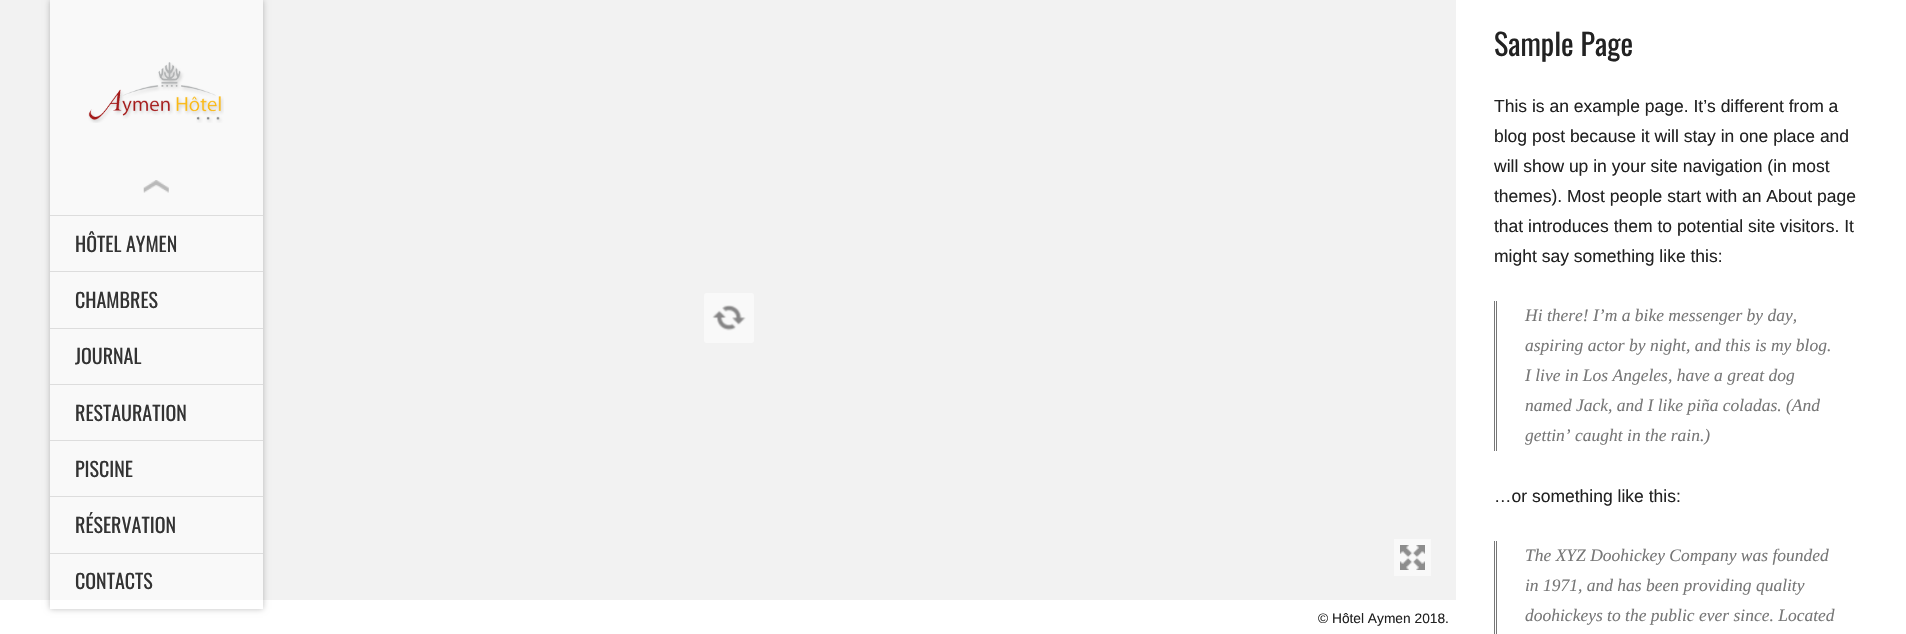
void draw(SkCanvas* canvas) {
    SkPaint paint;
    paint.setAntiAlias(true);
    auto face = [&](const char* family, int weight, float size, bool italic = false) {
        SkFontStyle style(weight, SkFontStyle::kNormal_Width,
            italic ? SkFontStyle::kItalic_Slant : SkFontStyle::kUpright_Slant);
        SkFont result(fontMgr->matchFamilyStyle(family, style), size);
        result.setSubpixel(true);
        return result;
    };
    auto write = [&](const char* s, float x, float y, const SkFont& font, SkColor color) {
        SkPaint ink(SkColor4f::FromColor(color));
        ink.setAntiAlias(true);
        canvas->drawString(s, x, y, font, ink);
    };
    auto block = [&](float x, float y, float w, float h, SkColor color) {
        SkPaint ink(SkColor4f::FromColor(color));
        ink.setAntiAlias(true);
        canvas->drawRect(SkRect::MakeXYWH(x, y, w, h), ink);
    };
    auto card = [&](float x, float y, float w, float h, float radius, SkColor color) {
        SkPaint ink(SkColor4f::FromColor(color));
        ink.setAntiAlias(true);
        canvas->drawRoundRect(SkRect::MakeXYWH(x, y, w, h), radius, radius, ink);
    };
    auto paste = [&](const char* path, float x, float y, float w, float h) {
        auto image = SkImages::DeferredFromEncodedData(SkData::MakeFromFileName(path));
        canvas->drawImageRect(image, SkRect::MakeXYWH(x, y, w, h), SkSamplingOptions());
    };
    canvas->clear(SkColorSetRGB(242, 242, 242));
    block(0, 600, 1456, 34, SK_ColorWHITE);
    canvas->save();
    canvas->clipPath(SkPathBuilder(SkPathFillType::kEvenOdd).moveTo(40, 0).lineTo(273, 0).lineTo(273, 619).lineTo(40, 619).close().moveTo(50, 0).lineTo(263, 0).lineTo(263, 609).lineTo(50, 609).close().detach(), true);
    paint.setColor(SkColorSetARGB(64, 0, 0, 0));
    paint.setMaskFilter(SkMaskFilter::MakeBlur(kNormal_SkBlurStyle, 3));
    canvas->drawRect(SkRect::MakeXYWH(50, 0, 213, 609), paint);
    paint.setMaskFilter(nullptr);
    canvas->restore();
    block(50, 0, 213, 609, SkColorSetARGB(128, 255, 255, 255));
    paste("pic1.png", 88, 62, 136, 61);
    paste("pic2.png", 143, 180, 26, 13);
    block(50, 215, 213, 1, SkColorSetRGB(221, 221, 221));
    auto kFont1 = face("Oswald", 400, 20);
    write("HÔTEL AYMEN", 75, 252, kFont1, SkColorSetRGB(51, 51, 51));
    block(50, 271, 213, 1, SkColorSetRGB(221, 221, 221));
    write("CHAMBRES", 75, 308, kFont1, SkColorSetRGB(51, 51, 51));
    block(50, 328, 213, 1, SkColorSetRGB(221, 221, 221));
    write("JOURNAL", 75, 364, kFont1, SkColorSetRGB(51, 51, 51));
    block(50, 384, 213, 1, SkColorSetRGB(221, 221, 221));
    write("RESTAURATION", 75, 421, kFont1, SkColorSetRGB(51, 51, 51));
    block(50, 440, 213, 1, SkColorSetRGB(221, 221, 221));
    write("PISCINE", 75, 477, kFont1, SkColorSetRGB(51, 51, 51));
    block(50, 496, 213, 1, SkColorSetRGB(221, 221, 221));
    write("RÉSERVATION", 75, 533, kFont1, SkColorSetRGB(51, 51, 51));
    block(50, 553, 213, 1, SkColorSetRGB(221, 221, 221));
    write("CONTACTS", 75, 589, kFont1, SkColorSetRGB(51, 51, 51));
    card(704, 293, 50, 50, 2.5f, SkColorSetRGB(249, 249, 249));
    paste("pic3.png", 712, 305, 34, 26);
    block(1456, 0, 450, 634, SK_ColorWHITE);
    auto kFont2 = face("Oswald", 400, 30);
    write("Sample Page", 1494, 56, kFont2, SkColorSetRGB(34, 34, 34));
    auto kFont3 = face("Liberation Sans", 400, 17.5f);
    write("This is an example page. It’s different from a", 1494, 112, kFont3, SkColorSetRGB(34, 34, 34));
    write("blog post because it will stay in one place and", 1494, 142, kFont3, SkColorSetRGB(34, 34, 34));
    write("will show up in your site navigation (in most", 1494, 172, kFont3, SkColorSetRGB(34, 34, 34));
    write("themes). Most people start with an About page", 1494, 202, kFont3, SkColorSetRGB(34, 34, 34));
    write("that introduces them to potential site visitors. It", 1494, 232, kFont3, SkColorSetRGB(34, 34, 34));
    write("might say something like this:", 1494, 262, kFont3, SkColorSetRGB(34, 34, 34));
    block(1494, 301, 1, 150, SkColorSetRGB(119, 119, 119));
    block(1496, 301, 1, 150, SkColorSetRGB(119, 119, 119));
    auto kFont4 = face("Liberation Serif", 400, 17.5f, true);
    write("Hi there! I’m a bike messenger by day,", 1525, 321, kFont4, SkColorSetRGB(119, 119, 119));
    write("aspiring actor by night, and this is my blog.", 1525, 351, kFont4, SkColorSetRGB(119, 119, 119));
    write("I live in Los Angeles, have a great dog", 1525, 381, kFont4, SkColorSetRGB(119, 119, 119));
    write("named Jack, and I like piña coladas. (And", 1525, 411, kFont4, SkColorSetRGB(119, 119, 119));
    write("gettin’ caught in the rain.)", 1525, 441, kFont4, SkColorSetRGB(119, 119, 119));
    write("…or something like this:", 1494, 502, kFont3, SkColorSetRGB(34, 34, 34));
    block(1494, 541, 1, 93, SkColorSetRGB(119, 119, 119));
    block(1496, 541, 1, 93, SkColorSetRGB(119, 119, 119));
    write("The XYZ Doohickey Company was founded", 1525, 561, kFont4, SkColorSetRGB(119, 119, 119));
    write("in 1971, and has been providing quality", 1525, 591, kFont4, SkColorSetRGB(119, 119, 119));
    write("doohickeys to the public ever since. Located", 1525, 621, kFont4, SkColorSetRGB(119, 119, 119));
    block(1394, 539, 37, 37, SkColorSetRGB(249, 249, 249));
    paste("pic4.png", 1400, 545, 25, 25);
    auto kFont5 = face("Liberation Sans", 400, 13.75f);
    write("© Hôtel Aymen 2018.", 1318, 623, kFont5, SkColorSetRGB(34, 34, 34));
}
